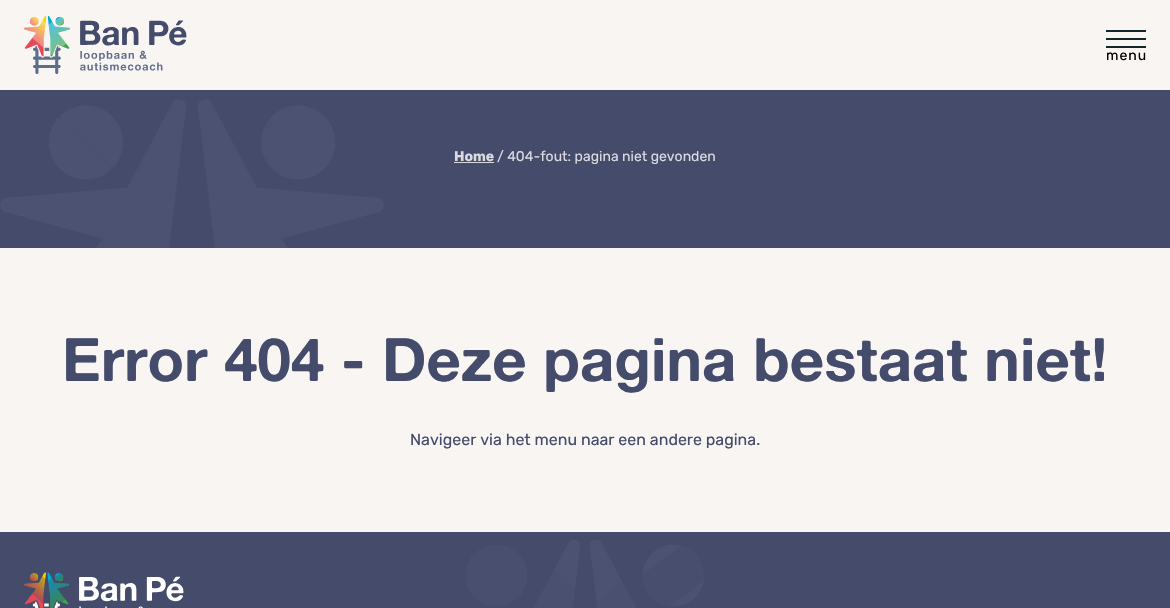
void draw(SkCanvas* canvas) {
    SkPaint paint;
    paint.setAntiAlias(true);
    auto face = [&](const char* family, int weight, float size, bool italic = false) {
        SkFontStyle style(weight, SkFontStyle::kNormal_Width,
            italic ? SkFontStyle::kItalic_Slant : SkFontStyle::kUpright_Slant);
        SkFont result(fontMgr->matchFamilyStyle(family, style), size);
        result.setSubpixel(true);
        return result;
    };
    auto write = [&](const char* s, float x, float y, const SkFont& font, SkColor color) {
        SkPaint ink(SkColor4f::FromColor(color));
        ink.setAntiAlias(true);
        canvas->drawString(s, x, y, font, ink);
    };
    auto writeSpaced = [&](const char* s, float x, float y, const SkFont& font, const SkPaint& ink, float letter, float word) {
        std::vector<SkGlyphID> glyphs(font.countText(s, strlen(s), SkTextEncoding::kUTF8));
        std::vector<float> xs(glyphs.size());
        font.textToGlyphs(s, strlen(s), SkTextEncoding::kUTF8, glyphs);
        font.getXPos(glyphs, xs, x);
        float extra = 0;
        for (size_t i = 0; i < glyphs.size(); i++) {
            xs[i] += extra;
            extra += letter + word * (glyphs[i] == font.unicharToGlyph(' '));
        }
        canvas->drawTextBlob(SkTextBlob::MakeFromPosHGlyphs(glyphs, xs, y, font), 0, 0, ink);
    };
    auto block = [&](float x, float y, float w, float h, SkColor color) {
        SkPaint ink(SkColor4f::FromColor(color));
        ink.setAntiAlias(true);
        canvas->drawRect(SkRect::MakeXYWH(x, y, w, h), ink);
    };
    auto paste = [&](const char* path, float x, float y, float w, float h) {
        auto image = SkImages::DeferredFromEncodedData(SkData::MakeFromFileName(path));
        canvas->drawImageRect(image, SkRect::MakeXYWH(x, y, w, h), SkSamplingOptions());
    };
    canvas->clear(SkColorSetRGB(68, 75, 107));
    block(0, 0, 1170, 90, SkColorSetRGB(248, 245, 242));
    paste("pic1.png", 24, 16, 163, 58);
    block(1106, 30, 40, 2, SkColorSetRGB(19, 38, 40));
    block(1106, 38, 40, 2, SkColorSetRGB(19, 38, 40));
    block(1106, 46, 40, 2, SkColorSetRGB(19, 38, 40));
    auto kFont1 = face("Rubik", 400, 14);
    paint.setColor(SK_ColorBLACK);
    writeSpaced("menu", 1106, 60, kFont1, paint, 1, 0);
    paste("pic2.png", 0, 99, 384, 149);
    auto kFont2 = face("Rubik", 700, 14);
    write("Home", 454, 161, kFont2, SkColorSetRGB(218, 219, 225));
    block(454, 162, 40, 1, SkColorSetRGB(218, 219, 225));
    write("/ 404-fout: pagina niet gevonden", 497, 161, kFont1, SkColorSetRGB(218, 219, 225));
    block(0, 248, 1170, 284, SkColorSetRGB(248, 245, 242));
    auto kFont3 = face("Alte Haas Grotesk", 700, 60);
    write("Error 404 - Deze pagina bestaat niet!", 62, 381, kFont3, SkColorSetRGB(68, 75, 107));
    auto kFont4 = face("Rubik", 400, 16);
    write("Navigeer via het menu naar een andere pagina.", 410, 445, kFont4, SkColorSetRGB(68, 75, 107));
    paste("pic3.png", 466, 540, 238, 68);
    paste("pic4.png", 24, 572, 160, 36);
}
